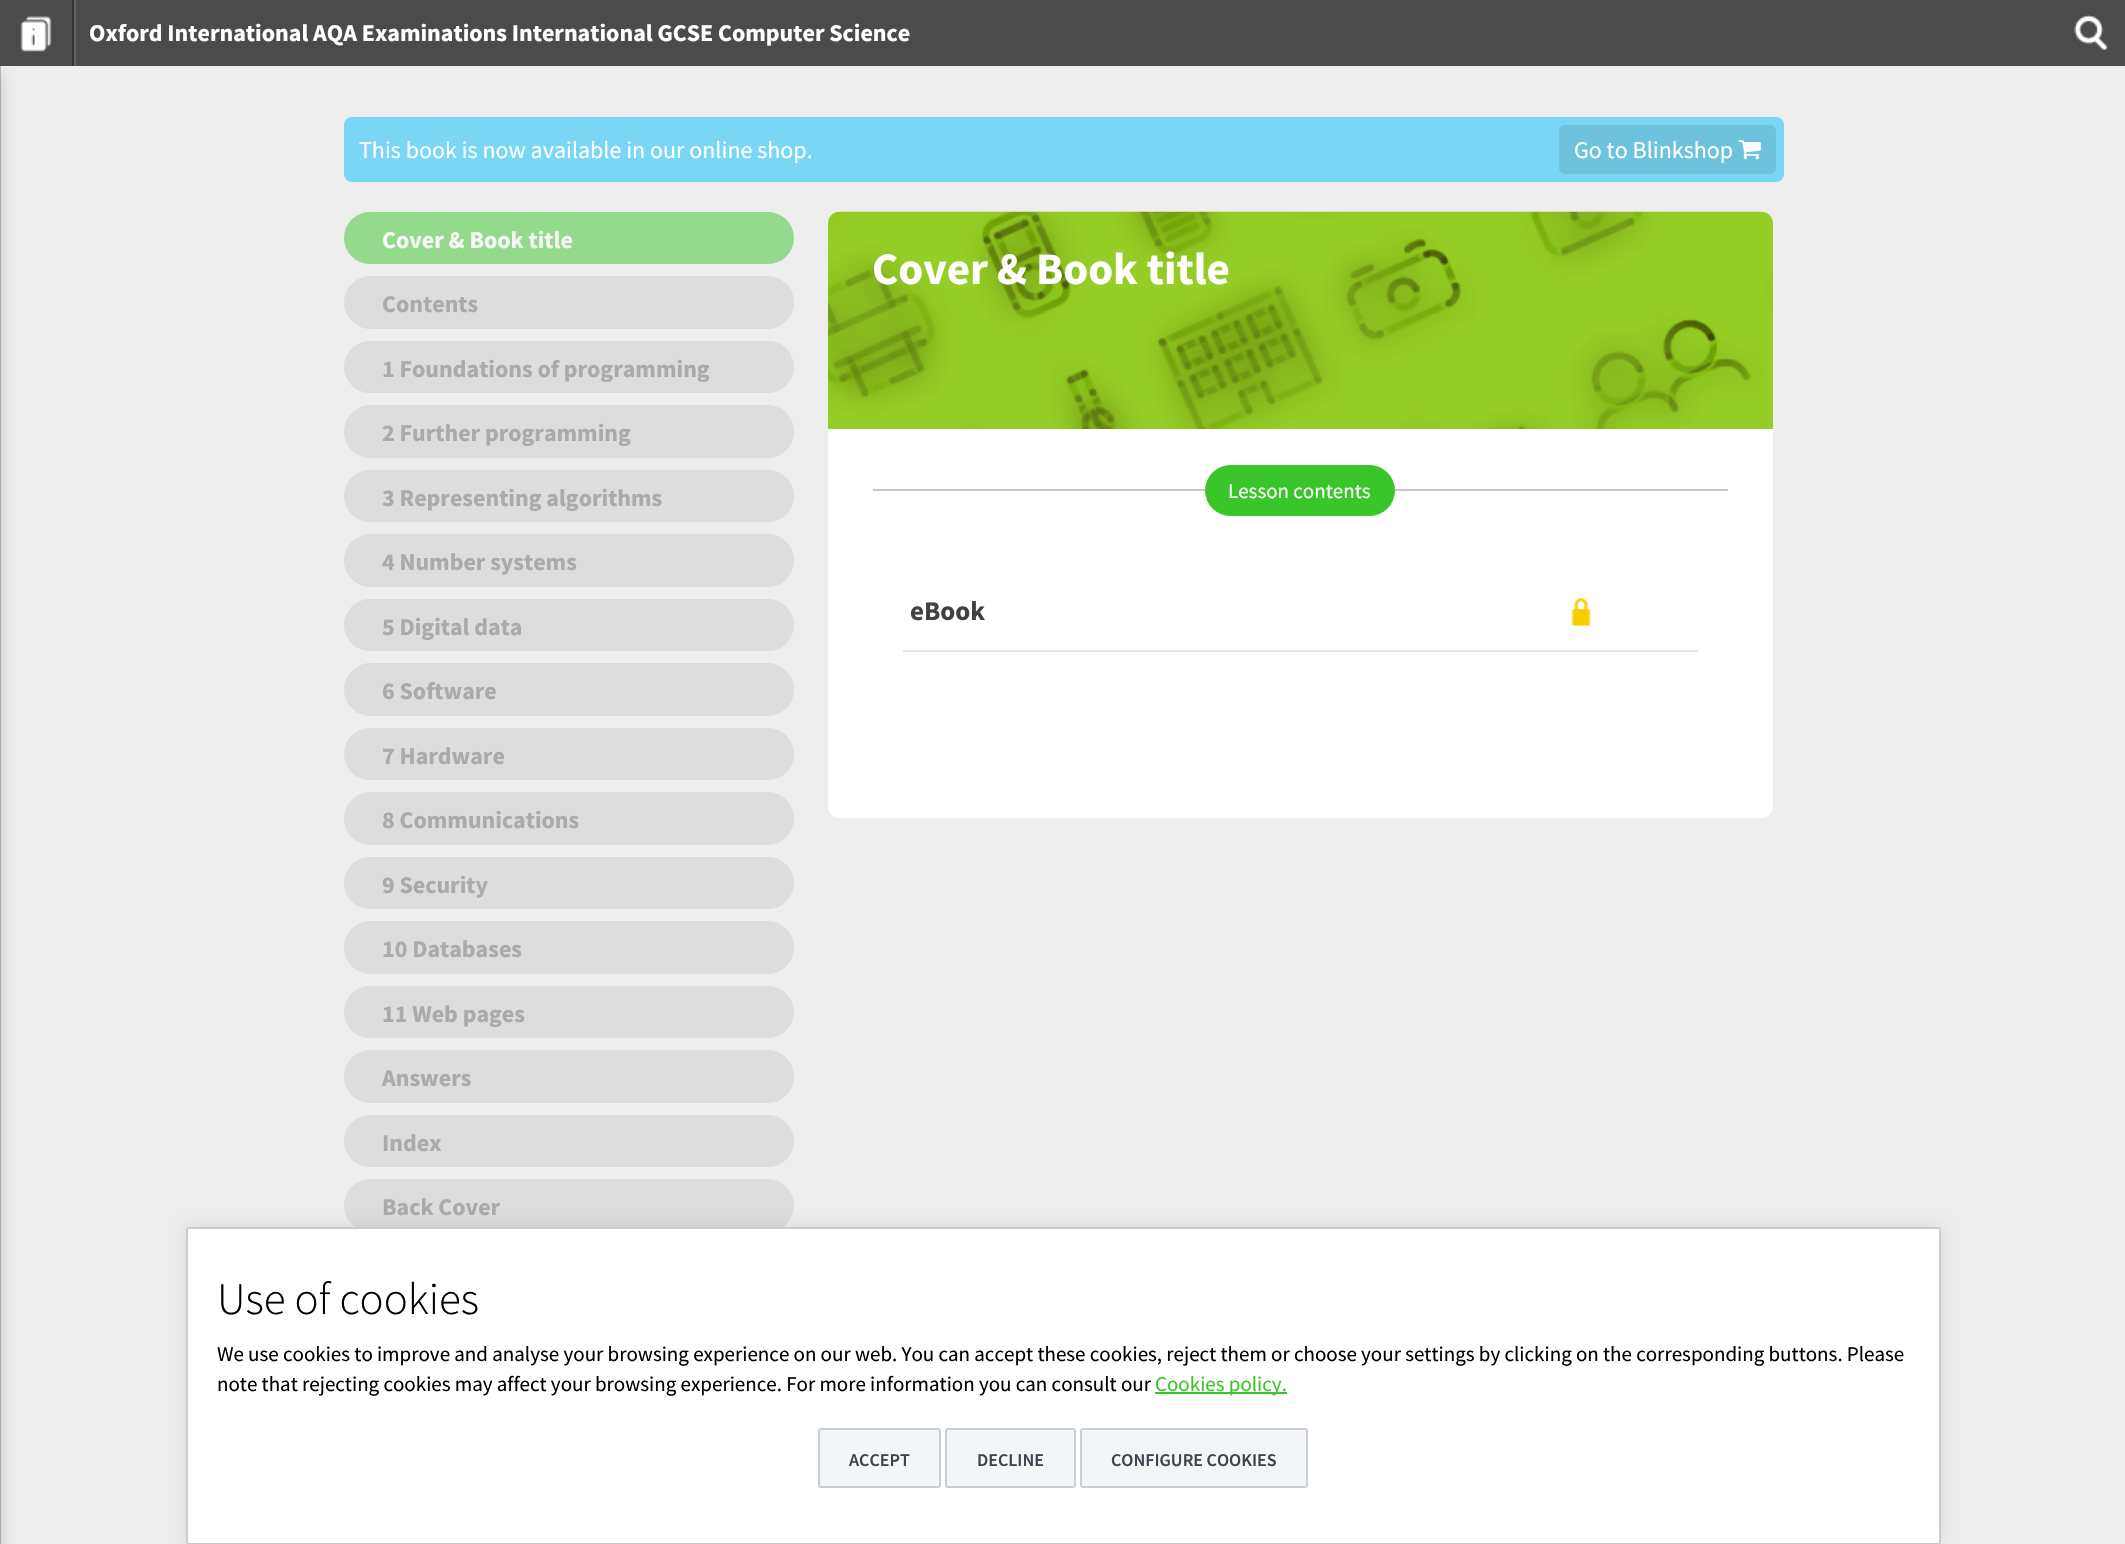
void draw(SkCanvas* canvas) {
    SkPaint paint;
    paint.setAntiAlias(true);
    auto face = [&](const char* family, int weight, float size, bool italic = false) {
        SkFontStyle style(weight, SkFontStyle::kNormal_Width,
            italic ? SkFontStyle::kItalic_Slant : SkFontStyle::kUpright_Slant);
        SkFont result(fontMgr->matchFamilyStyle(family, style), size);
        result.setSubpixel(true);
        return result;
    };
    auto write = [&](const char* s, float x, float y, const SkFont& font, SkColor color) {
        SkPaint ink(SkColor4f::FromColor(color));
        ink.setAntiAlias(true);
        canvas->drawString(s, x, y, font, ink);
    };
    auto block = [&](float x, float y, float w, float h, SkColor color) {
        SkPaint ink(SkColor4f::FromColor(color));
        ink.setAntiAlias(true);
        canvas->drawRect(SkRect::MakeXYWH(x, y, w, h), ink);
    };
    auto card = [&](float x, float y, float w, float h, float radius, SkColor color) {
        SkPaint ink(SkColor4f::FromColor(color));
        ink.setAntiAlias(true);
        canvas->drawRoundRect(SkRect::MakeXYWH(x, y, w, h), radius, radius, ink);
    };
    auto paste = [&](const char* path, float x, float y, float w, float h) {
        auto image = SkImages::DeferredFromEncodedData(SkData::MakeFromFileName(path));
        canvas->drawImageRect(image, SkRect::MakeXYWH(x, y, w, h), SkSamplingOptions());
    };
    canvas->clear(SkColorSetRGB(238, 238, 238));
    paint.setColor(SkColorSetARGB(51, 0, 0, 0));
    paint.setMaskFilter(SkMaskFilter::MakeBlur(kNormal_SkBlurStyle, 7.5f));
    canvas->drawRect(SkRect::MakeXYWH(-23, 74, 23, 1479), paint);
    paint.setMaskFilter(nullptr);
    block(0, 0, 2125, 66, SkColorSetRGB(75, 75, 75));
    paste("pic1.png", 20, 16, 32, 36);
    block(72, 0, 2, 66, SkColorSetRGB(51, 51, 51));
    block(74, 0, 2, 66, SkColorSetRGB(102, 102, 102));
    auto kFont1 = face("Source Sans Pro", 700, 24);
    write("Oxford International AQA Examinations International GCSE Computer Science", 89, 41, kFont1, SK_ColorWHITE);
    paste("pic2.png", 2074, 14, 34, 36);
    block(0, 66, 1, 1478, SkColorSetARGB(51, 0, 0, 0));
    card(344, 117, 1440, 65, 8, SkColorSetRGB(121, 215, 245));
    auto kFont2 = face("Source Sans Pro", 400, 24);
    write("This book is now available in our online shop.", 359, 158, kFont2, SK_ColorWHITE);
    card(1559, 125, 217, 49, 6, SkColorSetRGB(109, 194, 221));
    write("Go to Blinkshop", 1574, 158, kFont2, SK_ColorWHITE);
    paste("pic3.png", 1738, 140, 23, 20);
    card(344, 212, 450, 52, 26, SkColorSetRGB(148, 218, 140));
    write("Cover & Book title", 382, 248, kFont1, SkColorSetRGB(247, 247, 247));
    card(344, 276, 450, 53, 26.5f, SkColorSetRGB(221, 221, 221));
    write("Contents", 382, 312, kFont1, SkColorSetRGB(170, 170, 170));
    card(344, 341, 450, 52, 26, SkColorSetRGB(221, 221, 221));
    write("1 Foundations of programming", 382, 377, kFont1, SkColorSetRGB(170, 170, 170));
    card(344, 405, 450, 53, 26.5f, SkColorSetRGB(221, 221, 221));
    write("2 Further programming", 382, 441, kFont1, SkColorSetRGB(170, 170, 170));
    card(344, 470, 450, 52, 26, SkColorSetRGB(221, 221, 221));
    write("3 Representing algorithms", 382, 506, kFont1, SkColorSetRGB(170, 170, 170));
    card(344, 534, 450, 53, 26.5f, SkColorSetRGB(221, 221, 221));
    write("4 Number systems", 382, 570, kFont1, SkColorSetRGB(170, 170, 170));
    card(344, 599, 450, 52, 26, SkColorSetRGB(221, 221, 221));
    write("5 Digital data", 382, 635, kFont1, SkColorSetRGB(170, 170, 170));
    card(344, 663, 450, 53, 26.5f, SkColorSetRGB(221, 221, 221));
    write("6 Software", 382, 699, kFont1, SkColorSetRGB(170, 170, 170));
    card(344, 728, 450, 52, 26, SkColorSetRGB(221, 221, 221));
    write("7 Hardware", 382, 764, kFont1, SkColorSetRGB(170, 170, 170));
    card(344, 792, 450, 53, 26.5f, SkColorSetRGB(221, 221, 221));
    write("8 Communications", 382, 828, kFont1, SkColorSetRGB(170, 170, 170));
    card(344, 857, 450, 52, 26, SkColorSetRGB(221, 221, 221));
    write("9 Security", 382, 893, kFont1, SkColorSetRGB(170, 170, 170));
    card(344, 921, 450, 53, 26.5f, SkColorSetRGB(221, 221, 221));
    write("10 Databases", 382, 957, kFont1, SkColorSetRGB(170, 170, 170));
    card(344, 986, 450, 52, 26, SkColorSetRGB(221, 221, 221));
    write("11 Web pages", 382, 1022, kFont1, SkColorSetRGB(170, 170, 170));
    card(344, 1050, 450, 53, 26.5f, SkColorSetRGB(221, 221, 221));
    write("Answers", 382, 1086, kFont1, SkColorSetRGB(170, 170, 170));
    card(344, 1115, 450, 52, 26, SkColorSetRGB(221, 221, 221));
    write("Index", 382, 1151, kFont1, SkColorSetRGB(170, 170, 170));
    card(344, 1179, 450, 53, 26.5f, SkColorSetRGB(221, 221, 221));
    write("Back Cover", 382, 1215, kFont1, SkColorSetRGB(170, 170, 170));
    card(828, 212, 945, 606, 12, SK_ColorWHITE);
    paste("pic4.png", 828, 211, 945, 218);
    auto kFont3 = face("Source Sans Pro", 700, 45);
    write("Cover & Book title", 872, 284, kFont3, SK_ColorWHITE);
    block(873, 489, 855, 2, SkColorSetRGB(200, 200, 200));
    card(1205, 465, 190, 51, 25.5f, SkColorSetRGB(58, 198, 42));
    auto kFont4 = face("Source Sans Pro", 400, 21);
    write("Lesson contents", 1228, 498, kFont4, SK_ColorWHITE);
    block(903, 650, 795, 2, SkColorSetRGB(229, 229, 229));
    auto kFont5 = face("Source Sans Pro", 700, 27);
    write("eBook", 910, 620, kFont5, SkColorSetRGB(65, 65, 65));
    paste("pic5.png", 1571, 598, 20, 28);
    paint.setColor(SkColorSetARGB(26, 0, 0, 0));
    paint.setMaskFilter(SkMaskFilter::MakeBlur(kNormal_SkBlurStyle, 7.5f));
    canvas->drawRoundRect(SkRect::MakeXYWH(186, 1227, 1755, 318), 3, 3, paint);
    paint.setMaskFilter(nullptr);
    card(186, 1227, 1755, 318, 3, SK_ColorWHITE);
    paint.setStyle(SkPaint::kStroke_Style);
    paint.setStrokeWidth(2);
    paint.setColor(SkColorSetARGB(51, 0, 0, 0));
    canvas->drawRoundRect(SkRect::MakeXYWH(187, 1228, 1753, 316), 2, 2, paint);
    auto kFont6 = face("Source Sans Pro", 300, 45);
    write("Use of cookies", 217, 1314, kFont6, SK_ColorBLACK);
    write("We use cookies to improve and analyse your browsing experience on our web. You can accept these cookies, reject them or choose your settings by clicking on the corresponding buttons. Please", 217, 1361, kFont4, SK_ColorBLACK);
    write("note that rejecting cookies may affect your browsing experience. For more information you can consult our", 217, 1391, kFont4, SK_ColorBLACK);
    block(1155, 1392, 132, 2, SkColorSetRGB(58, 198, 42));
    write("Cookies policy.", 1155, 1391, kFont4, SkColorSetRGB(58, 198, 42));
    paint.setStyle(SkPaint::kFill_Style);
    paint.setColor(SkColorSetRGB(244, 245, 247));
    canvas->drawRoundRect(SkRect::MakeXYWH(819, 1429, 121, 58), 2, 2, paint);
    paint.setStyle(SkPaint::kStroke_Style);
    paint.setColor(SkColorSetRGB(200, 205, 215));
    canvas->drawRoundRect(SkRect::MakeXYWH(819, 1429, 121, 58), 2, 2, paint);
    auto kFont7 = face("Source Sans Pro", 600, 18);
    write("ACCEPT", 849, 1466, kFont7, SkColorSetRGB(62, 68, 77));
    paint.setStyle(SkPaint::kFill_Style);
    paint.setColor(SkColorSetRGB(244, 245, 247));
    canvas->drawRoundRect(SkRect::MakeXYWH(946, 1429, 129, 58), 2, 2, paint);
    paint.setStyle(SkPaint::kStroke_Style);
    paint.setColor(SkColorSetRGB(200, 205, 215));
    canvas->drawRoundRect(SkRect::MakeXYWH(946, 1429, 129, 58), 2, 2, paint);
    write("DECLINE", 977, 1466, kFont7, SkColorSetRGB(62, 68, 77));
    paint.setStyle(SkPaint::kFill_Style);
    paint.setColor(SkColorSetRGB(244, 245, 247));
    canvas->drawRoundRect(SkRect::MakeXYWH(1081, 1429, 226, 58), 2, 2, paint);
    paint.setStyle(SkPaint::kStroke_Style);
    paint.setColor(SkColorSetRGB(200, 205, 215));
    canvas->drawRoundRect(SkRect::MakeXYWH(1081, 1429, 226, 58), 2, 2, paint);
    write("CONFIGURE COOKIES", 1111, 1466, kFont7, SkColorSetRGB(62, 68, 77));
}
